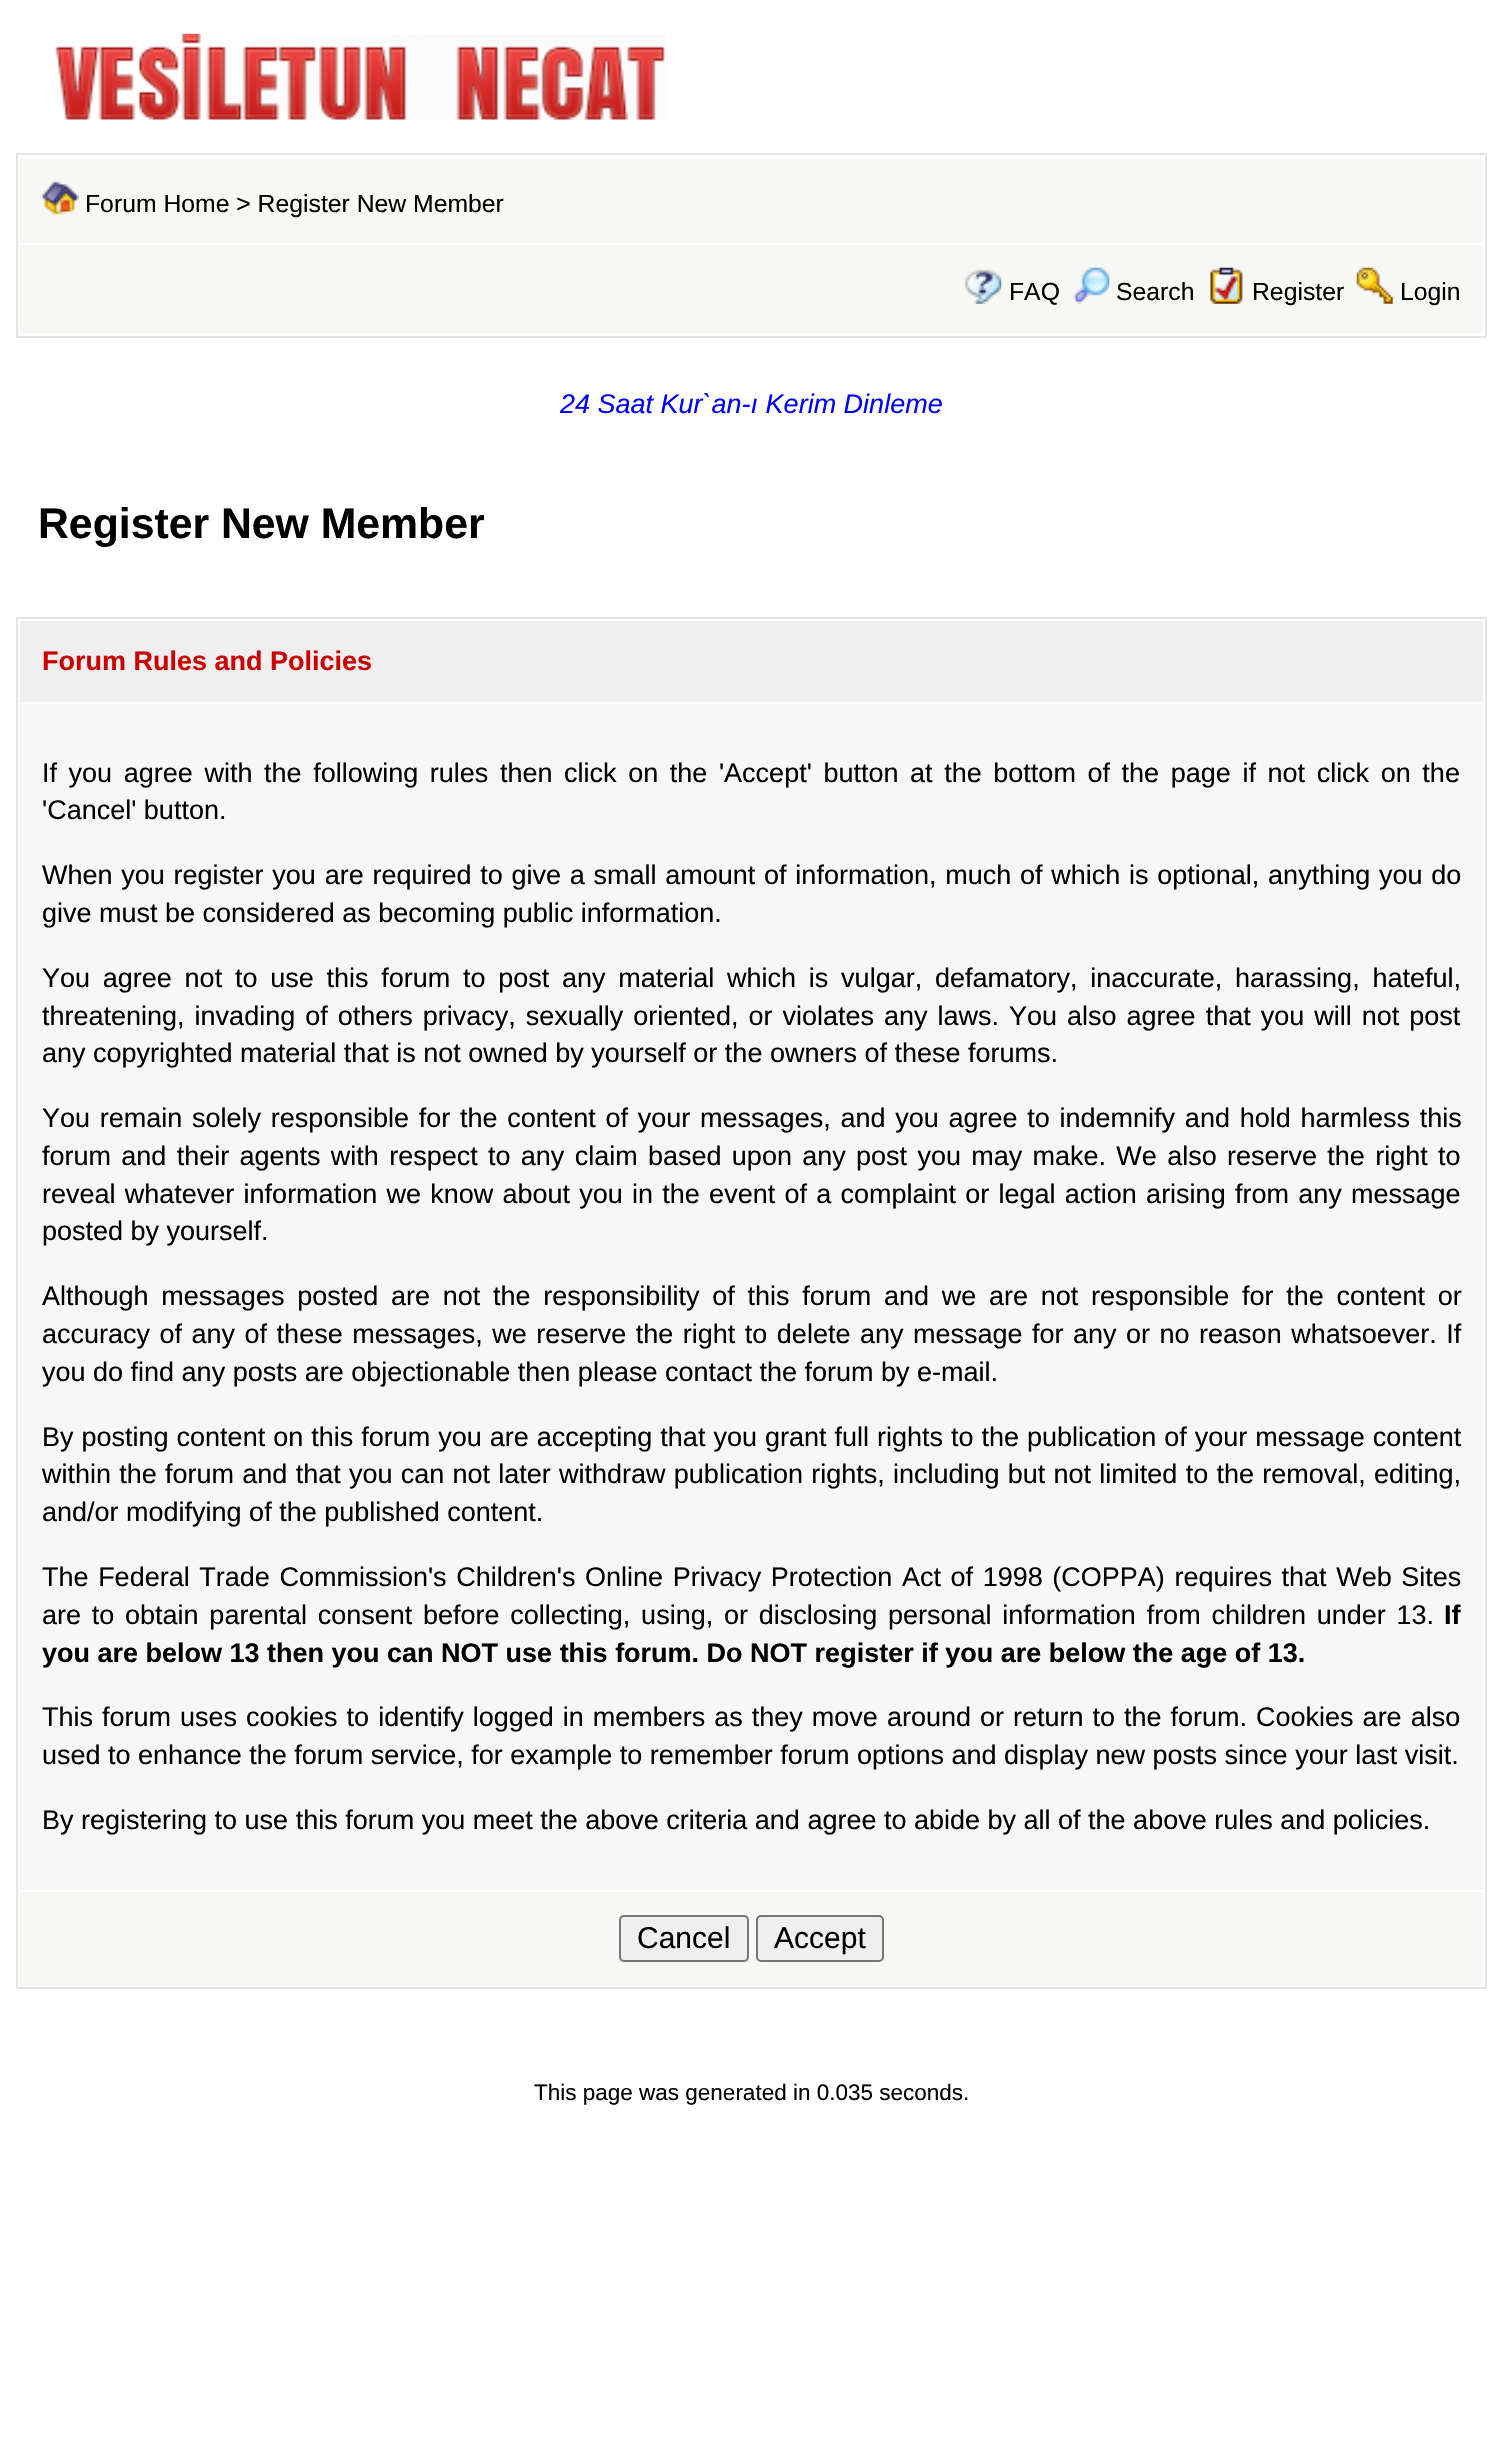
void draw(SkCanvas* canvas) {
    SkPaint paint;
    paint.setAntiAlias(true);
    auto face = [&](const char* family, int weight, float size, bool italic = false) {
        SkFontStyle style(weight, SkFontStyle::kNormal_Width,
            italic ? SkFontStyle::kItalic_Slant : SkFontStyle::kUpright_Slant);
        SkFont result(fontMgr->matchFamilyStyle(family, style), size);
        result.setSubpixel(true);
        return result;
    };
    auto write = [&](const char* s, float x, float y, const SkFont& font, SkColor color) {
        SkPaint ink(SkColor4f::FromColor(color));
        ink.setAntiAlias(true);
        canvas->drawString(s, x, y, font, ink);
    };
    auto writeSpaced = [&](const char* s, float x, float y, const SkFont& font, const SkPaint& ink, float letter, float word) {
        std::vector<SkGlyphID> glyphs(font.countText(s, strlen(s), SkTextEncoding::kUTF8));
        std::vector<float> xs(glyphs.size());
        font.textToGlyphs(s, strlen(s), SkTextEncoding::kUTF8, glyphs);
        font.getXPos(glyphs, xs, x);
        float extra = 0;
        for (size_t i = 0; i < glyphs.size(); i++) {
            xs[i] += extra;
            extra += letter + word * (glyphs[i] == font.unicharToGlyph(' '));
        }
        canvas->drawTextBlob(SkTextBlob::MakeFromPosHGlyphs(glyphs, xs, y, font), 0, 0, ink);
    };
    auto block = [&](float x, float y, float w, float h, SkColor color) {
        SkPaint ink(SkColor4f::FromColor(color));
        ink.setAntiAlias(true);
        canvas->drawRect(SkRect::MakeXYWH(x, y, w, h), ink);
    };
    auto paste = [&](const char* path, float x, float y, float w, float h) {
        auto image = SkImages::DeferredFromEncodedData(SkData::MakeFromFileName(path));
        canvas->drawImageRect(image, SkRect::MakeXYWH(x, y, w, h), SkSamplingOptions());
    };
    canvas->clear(SK_ColorWHITE);
    paste("pic1.png", 55, 33, 610, 87);
    paint.setStyle(SkPaint::kStroke_Style);
    paint.setStrokeWidth(2);
    paint.setColor(SkColorSetRGB(228, 228, 228));
    canvas->drawRect(SkRect::MakeXYWH(17, 154, 1469, 183), paint);
    block(20, 158, 1463, 85, SkColorSetRGB(247, 247, 244));
    paste("pic2.png", 42, 181, 37, 34);
    auto kFont1 = face("Liberation Sans", 400, 24.75f);
    write("Forum Home > Register New Member", 85, 212, kFont1, SK_ColorBLACK);
    block(20, 245, 1463, 88, SkColorSetRGB(247, 247, 244));
    paste("pic3.png", 965, 269, 37, 35);
    write("FAQ", 1009, 300, kFont1, SK_ColorBLACK);
    paste("pic4.png", 1073, 267, 37, 37);
    write("Search", 1116, 300, kFont1, SK_ColorBLACK);
    paste("pic5.png", 1210, 267, 33, 37);
    write("Register", 1252, 300, kFont1, SK_ColorBLACK);
    paste("pic6.png", 1356, 267, 37, 37);
    write("Login", 1400, 300, kFont1, SK_ColorBLACK);
    auto kFont2 = face("Liberation Sans", 400, 27, true);
    write("24 Saat Kur`an-ı Kerim Dinleme", 560, 413, kFont2, SkColorSetRGB(0, 0, 255));
    auto kFont3 = face("Liberation Sans", 700, 42.75f);
    write("Register New Member", 38, 538, kFont3, SK_ColorBLACK);
    canvas->drawRect(SkRect::MakeXYWH(17, 618, 1469, 1370), paint);
    block(20, 621, 1463, 81, SkColorSetRGB(239, 239, 239));
    auto kFont4 = face("Liberation Sans", 700, 27);
    write("Forum Rules and Policies", 42, 670, kFont4, SkColorSetRGB(204, 0, 0));
    block(20, 704, 1463, 1186, SkColorSetRGB(247, 247, 247));
    auto kFont5 = face("Liberation Sans", 400, 27);
    paint.setStyle(SkPaint::kFill_Style);
    paint.setColor(SK_ColorBLACK);
    writeSpaced("If you agree with the following rules then click on the 'Accept' button at the bottom of the page if not click on the", 42, 782, kFont5, paint, 0, 4.1f);
    write("'Cancel' button.", 42, 819, kFont5, SK_ColorBLACK);
    writeSpaced("When you register you are required to give a small amount of information, much of which is optional, anything you do", 42, 884, kFont5, paint, 0, 1.25f);
    write("give must be considered as becoming public information.", 42, 922, kFont5, SK_ColorBLACK);
    writeSpaced("You agree not to use this forum to post any material which is vulgar, defamatory, inaccurate, harassing, hateful,", 42, 987, kFont5, paint, 0, 5.25f);
    writeSpaced("threatening, invading of others privacy, sexually oriented, or violates any laws. You also agree that you will not post", 42, 1025, kFont5, paint, 0, 2.5f);
    write("any copyrighted material that is not owned by yourself or the owners of these forums.", 42, 1062, kFont5, SK_ColorBLACK);
    writeSpaced("You remain solely responsible for the content of your messages, and you agree to indemnify and hold harmless this", 42, 1127, kFont5, paint, 0, 2.25f);
    writeSpaced("forum and their agents with respect to any claim based upon any post you may make. We also reserve the right to", 42, 1165, kFont5, paint, 0, 2.8f);
    writeSpaced("reveal whatever information we know about you in the event of a complaint or legal action arising from any message", 42, 1203, kFont5, paint, 0, 1.75f);
    write("posted by yourself.", 42, 1240, kFont5, SK_ColorBLACK);
    writeSpaced("Although messages posted are not the responsibility of this forum and we are not responsible for the content or", 42, 1305, kFont5, paint, 0, 5.25f);
    writeSpaced("accuracy of any of these messages, we reserve the right to delete any message for any or no reason whatsoever. If", 42, 1343, kFont5, paint, 0, 2);
    write("you do find any posts are objectionable then please contact the forum by e-mail.", 42, 1381, kFont5, SK_ColorBLACK);
    writeSpaced("By posting content on this forum you are accepting that you grant full rights to the publication of your message content", 42, 1446, kFont5, paint, 0, 0.5f);
    writeSpaced("within the forum and that you can not later withdraw publication rights, including but not limited to the removal, editing,", 42, 1483, kFont5, paint, 0, 0.75f);
    write("and/or modifying of the published content.", 42, 1521, kFont5, SK_ColorBLACK);
    writeSpaced("The Federal Trade Commission's Children's Online Privacy Protection Act of 1998 (COPPA) requires that Web Sites", 42, 1586, kFont5, paint, 0, 2.1f);
    writeSpaced("are to obtain parental consent before collecting, using, or disclosing personal information from children under 13.", 42, 1624, kFont5, paint, 0, 3.25f);
    write("If", 1444, 1624, kFont4, SK_ColorBLACK);
    write("you are below 13 then you can NOT use this forum. Do NOT register if you are below the age of 13.", 42, 1662, kFont4, SK_ColorBLACK);
    writeSpaced("This forum uses cookies to identify logged in members as they move around or return to the forum. Cookies are also", 42, 1726, kFont5, paint, 0, 1.5f);
    write("used to enhance the forum service, for example to remember forum options and display new posts since your last visit.", 42, 1764, kFont5, SK_ColorBLACK);
    write("By registering to use this forum you meet the above criteria and agree to abide by all of the above rules and policies.", 42, 1829, kFont5, SK_ColorBLACK);
    block(20, 1892, 1463, 93, SkColorSetRGB(247, 247, 244));
    paint.setColor(SkColorSetRGB(239, 239, 239));
    canvas->drawRoundRect(SkRect::MakeXYWH(620, 1916, 128, 45), 4, 4, paint);
    paint.setStyle(SkPaint::kStroke_Style);
    paint.setColor(SkColorSetRGB(118, 118, 118));
    canvas->drawRoundRect(SkRect::MakeXYWH(620, 1916, 128, 45), 4, 4, paint);
    auto kFont6 = face("Liberation Sans", 400, 30);
    write("Cancel", 637, 1948, kFont6, SK_ColorBLACK);
    paint.setStyle(SkPaint::kFill_Style);
    paint.setColor(SkColorSetRGB(239, 239, 239));
    canvas->drawRoundRect(SkRect::MakeXYWH(757, 1916, 126, 45), 4, 4, paint);
    paint.setStyle(SkPaint::kStroke_Style);
    paint.setColor(SkColorSetRGB(118, 118, 118));
    canvas->drawRoundRect(SkRect::MakeXYWH(757, 1916, 126, 45), 4, 4, paint);
    write("Accept", 774, 1948, kFont6, SK_ColorBLACK);
    auto kFont7 = face("Liberation Sans", 400, 22.5f);
    write("This page was generated in 0.035 seconds.", 534, 2100, kFont7, SK_ColorBLACK);
}
